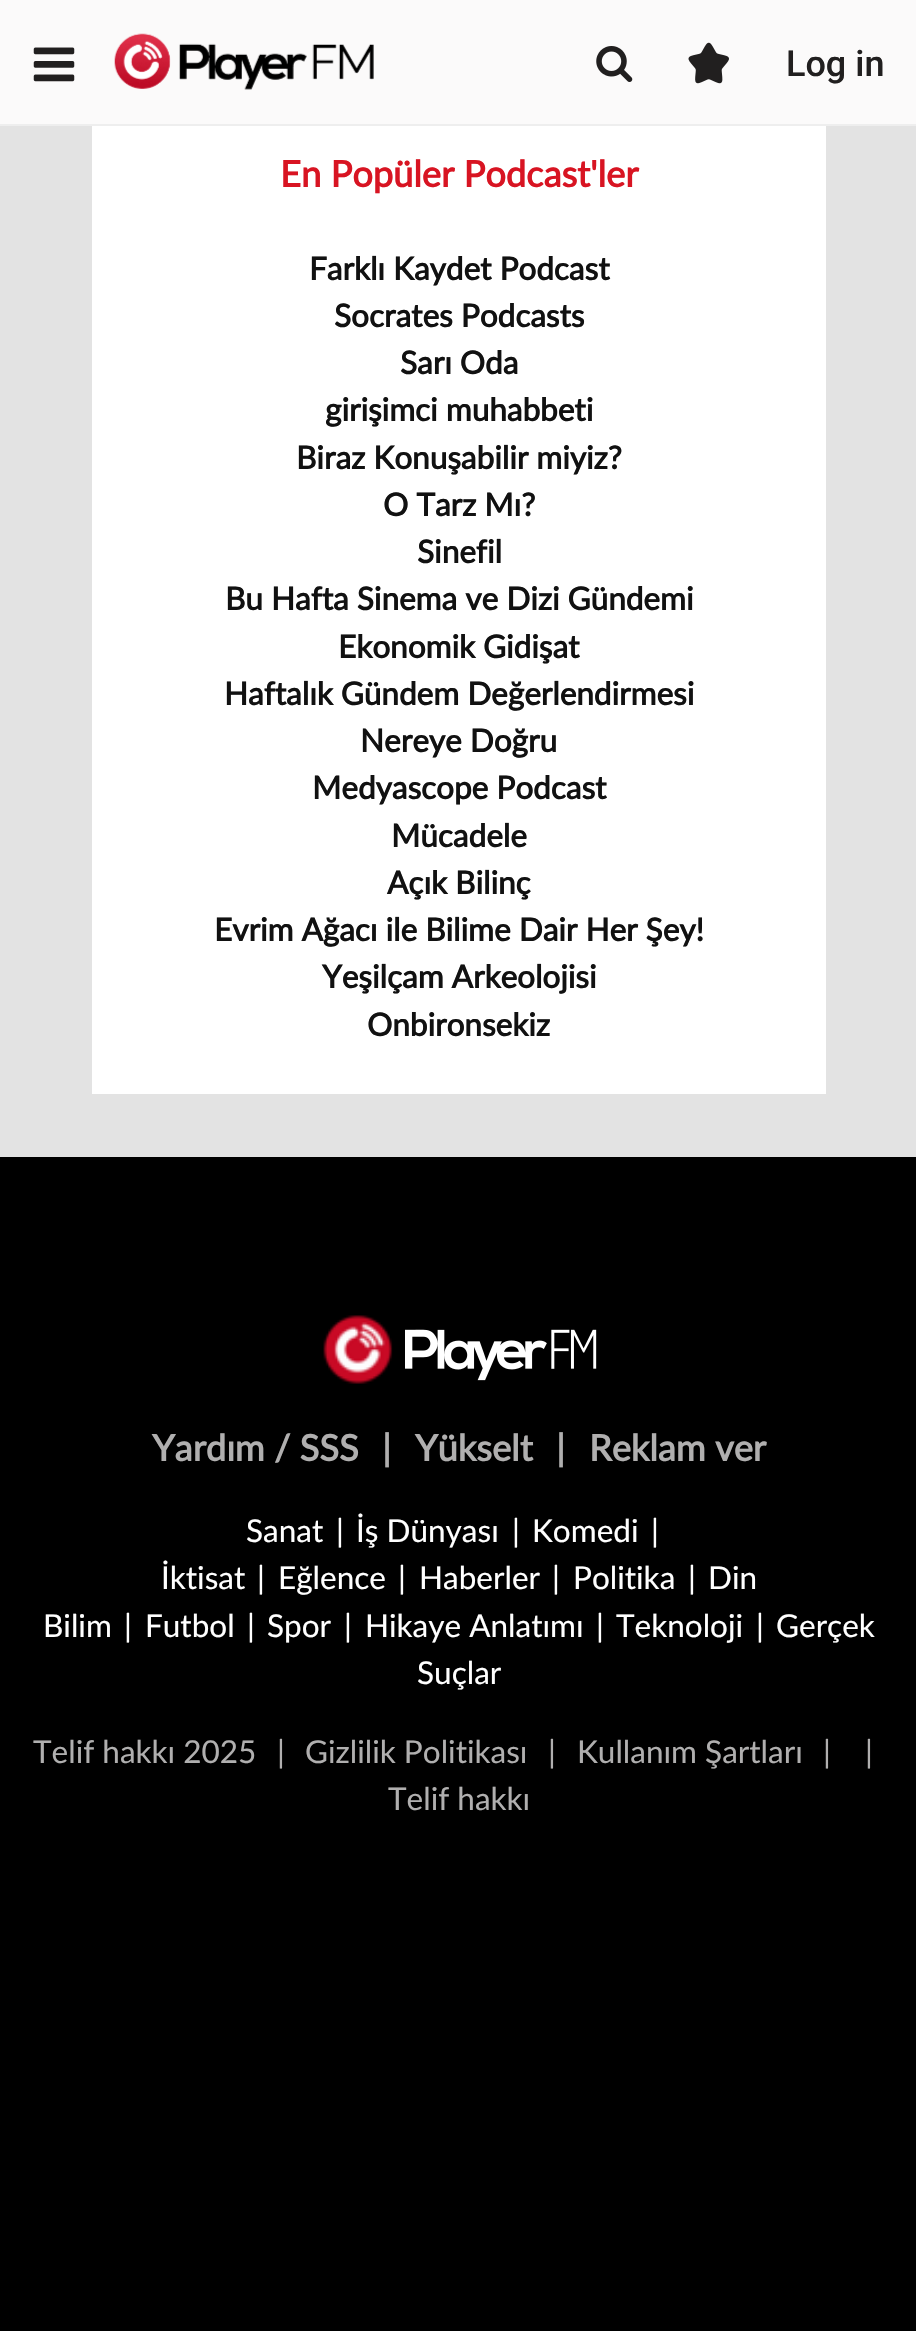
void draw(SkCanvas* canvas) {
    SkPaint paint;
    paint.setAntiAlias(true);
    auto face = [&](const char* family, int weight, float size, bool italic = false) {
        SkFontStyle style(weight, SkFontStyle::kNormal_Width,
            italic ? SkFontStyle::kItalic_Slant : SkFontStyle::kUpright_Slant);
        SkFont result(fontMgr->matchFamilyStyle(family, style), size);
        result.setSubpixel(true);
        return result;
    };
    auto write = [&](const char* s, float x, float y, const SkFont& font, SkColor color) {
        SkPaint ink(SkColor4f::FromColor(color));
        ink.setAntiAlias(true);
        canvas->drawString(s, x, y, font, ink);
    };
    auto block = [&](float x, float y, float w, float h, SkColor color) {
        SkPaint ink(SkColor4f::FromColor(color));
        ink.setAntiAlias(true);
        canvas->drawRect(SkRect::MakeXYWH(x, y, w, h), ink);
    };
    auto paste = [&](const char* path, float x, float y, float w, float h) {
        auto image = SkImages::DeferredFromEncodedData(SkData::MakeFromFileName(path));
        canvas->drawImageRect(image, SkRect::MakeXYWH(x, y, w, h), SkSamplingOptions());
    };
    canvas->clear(SkColorSetRGB(227, 227, 227));
    block(0, 0, 916, 124, SkColorSetRGB(251, 250, 250));
    block(0, 124, 916, 2, SkColorSetRGB(238, 238, 238));
    paste("pic1.png", 33, 47, 42, 35);
    paste("pic2.png", 114, 33, 260, 57);
    paste("pic3.png", 596, 46, 37, 36);
    paste("pic4.png", 688, 42, 41, 42);
    auto kFont1 = face("Roboto", 500, 36);
    write("Log in", 786, 76, kFont1, SkColorSetRGB(33, 31, 31));
    block(92, 126, 734, 968, SK_ColorWHITE);
    auto kFont2 = face("Lato", 700, 36.25f);
    write("En Popüler Podcast'ler", 280, 187, kFont2, SkColorSetRGB(216, 20, 34));
    auto kFont3 = face("Lato", 700, 31.5f);
    write("Farklı Kaydet Podcast", 309, 280, kFont3, SkColorSetRGB(17, 17, 17));
    write("Socrates Podcasts", 334, 327, kFont3, SkColorSetRGB(17, 17, 17));
    write("Sarı Oda", 400, 374, kFont3, SkColorSetRGB(17, 17, 17));
    write("girişimci muhabbeti", 325, 421, kFont3, SkColorSetRGB(17, 17, 17));
    write("Biraz Konuşabilir miyiz?", 296, 469, kFont3, SkColorSetRGB(17, 17, 17));
    write("O Tarz Mı?", 383, 516, kFont3, SkColorSetRGB(17, 17, 17));
    write("Sinefil", 417, 563, kFont3, SkColorSetRGB(17, 17, 17));
    write("Bu Hafta Sinema ve Dizi Gündemi", 225, 610, kFont3, SkColorSetRGB(17, 17, 17));
    write("Ekonomik Gidişat", 338, 658, kFont3, SkColorSetRGB(17, 17, 17));
    write("Haftalık Gündem Değerlendirmesi", 224, 705, kFont3, SkColorSetRGB(17, 17, 17));
    write("Nereye Doğru", 360, 752, kFont3, SkColorSetRGB(17, 17, 17));
    write("Medyascope Podcast", 312, 799, kFont3, SkColorSetRGB(17, 17, 17));
    write("Mücadele", 391, 847, kFont3, SkColorSetRGB(17, 17, 17));
    write("Açık Bilinç", 387, 894, kFont3, SkColorSetRGB(17, 17, 17));
    write("Evrim Ağacı ile Bilime Dair Her Şey!", 214, 941, kFont3, SkColorSetRGB(17, 17, 17));
    write("Yeşilçam Arkeolojisi", 322, 988, kFont3, SkColorSetRGB(17, 17, 17));
    write("Onbironsekiz", 367, 1036, kFont3, SkColorSetRGB(17, 17, 17));
    block(0, 1157, 916, 1174, SK_ColorBLACK);
    paste("pic5.png", 323, 1315, 70, 69);
    paste("pic6.png", 405, 1329, 192, 52);
    write("Yardım / SSS", 152, 1461, kFont2, SkColorSetRGB(176, 175, 175));
    write("|", 382, 1461, kFont2, SkColorSetRGB(176, 175, 175));
    write("Yükselt", 415, 1461, kFont2, SkColorSetRGB(176, 175, 175));
    write("|", 556, 1461, kFont2, SkColorSetRGB(176, 175, 175));
    write("Reklam ver", 589, 1461, kFont2, SkColorSetRGB(176, 175, 175));
    auto kFont4 = face("Lato", 400, 31.5f);
    write("Sanat", 246, 1542, kFont4, SK_ColorWHITE);
    write("|", 336, 1542, kFont4, SK_ColorWHITE);
    write("İş Dünyası", 356, 1542, kFont4, SK_ColorWHITE);
    write("|", 512, 1542, kFont4, SK_ColorWHITE);
    write("Komedi", 532, 1542, kFont4, SK_ColorWHITE);
    write("|", 651, 1542, kFont4, SK_ColorWHITE);
    write("İktisat", 161, 1589, kFont4, SK_ColorWHITE);
    write("|", 257, 1589, kFont4, SK_ColorWHITE);
    write("Eğlence", 278, 1589, kFont4, SK_ColorWHITE);
    write("|", 398, 1589, kFont4, SK_ColorWHITE);
    write("Haberler", 419, 1589, kFont4, SK_ColorWHITE);
    write("|", 552, 1589, kFont4, SK_ColorWHITE);
    write("Politika", 573, 1589, kFont4, SK_ColorWHITE);
    write("|", 688, 1589, kFont4, SK_ColorWHITE);
    write("Din", 708, 1589, kFont4, SK_ColorWHITE);
    write("Bilim", 43, 1637, kFont4, SK_ColorWHITE);
    write("|", 124, 1637, kFont4, SK_ColorWHITE);
    write("Futbol", 145, 1637, kFont4, SK_ColorWHITE);
    write("|", 247, 1637, kFont4, SK_ColorWHITE);
    write("Spor", 267, 1637, kFont4, SK_ColorWHITE);
    write("|", 344, 1637, kFont4, SK_ColorWHITE);
    write("Hikaye Anlatımı", 365, 1637, kFont4, SK_ColorWHITE);
    write("|", 596, 1637, kFont4, SK_ColorWHITE);
    write("Teknoloji", 616, 1637, kFont4, SK_ColorWHITE);
    write("|", 756, 1637, kFont4, SK_ColorWHITE);
    write("Gerçek", 776, 1637, kFont4, SK_ColorWHITE);
    write("Suçlar", 417, 1684, kFont4, SK_ColorWHITE);
    write("Telif hakkı 2025", 33, 1763, kFont4, SkColorSetRGB(176, 175, 175));
    write("|", 277, 1763, kFont4, SkColorSetRGB(176, 175, 175));
    write("Gizlilik Politikası", 305, 1763, kFont4, SkColorSetRGB(176, 175, 175));
    write("|", 548, 1763, kFont4, SkColorSetRGB(176, 175, 175));
    write("Kullanım Şartları", 577, 1763, kFont4, SkColorSetRGB(176, 175, 175));
    write("|", 823, 1763, kFont4, SkColorSetRGB(176, 175, 175));
    write("|", 865, 1763, kFont4, SkColorSetRGB(176, 175, 175));
    write("Telif hakkı", 388, 1810, kFont4, SkColorSetRGB(176, 175, 175));
}
